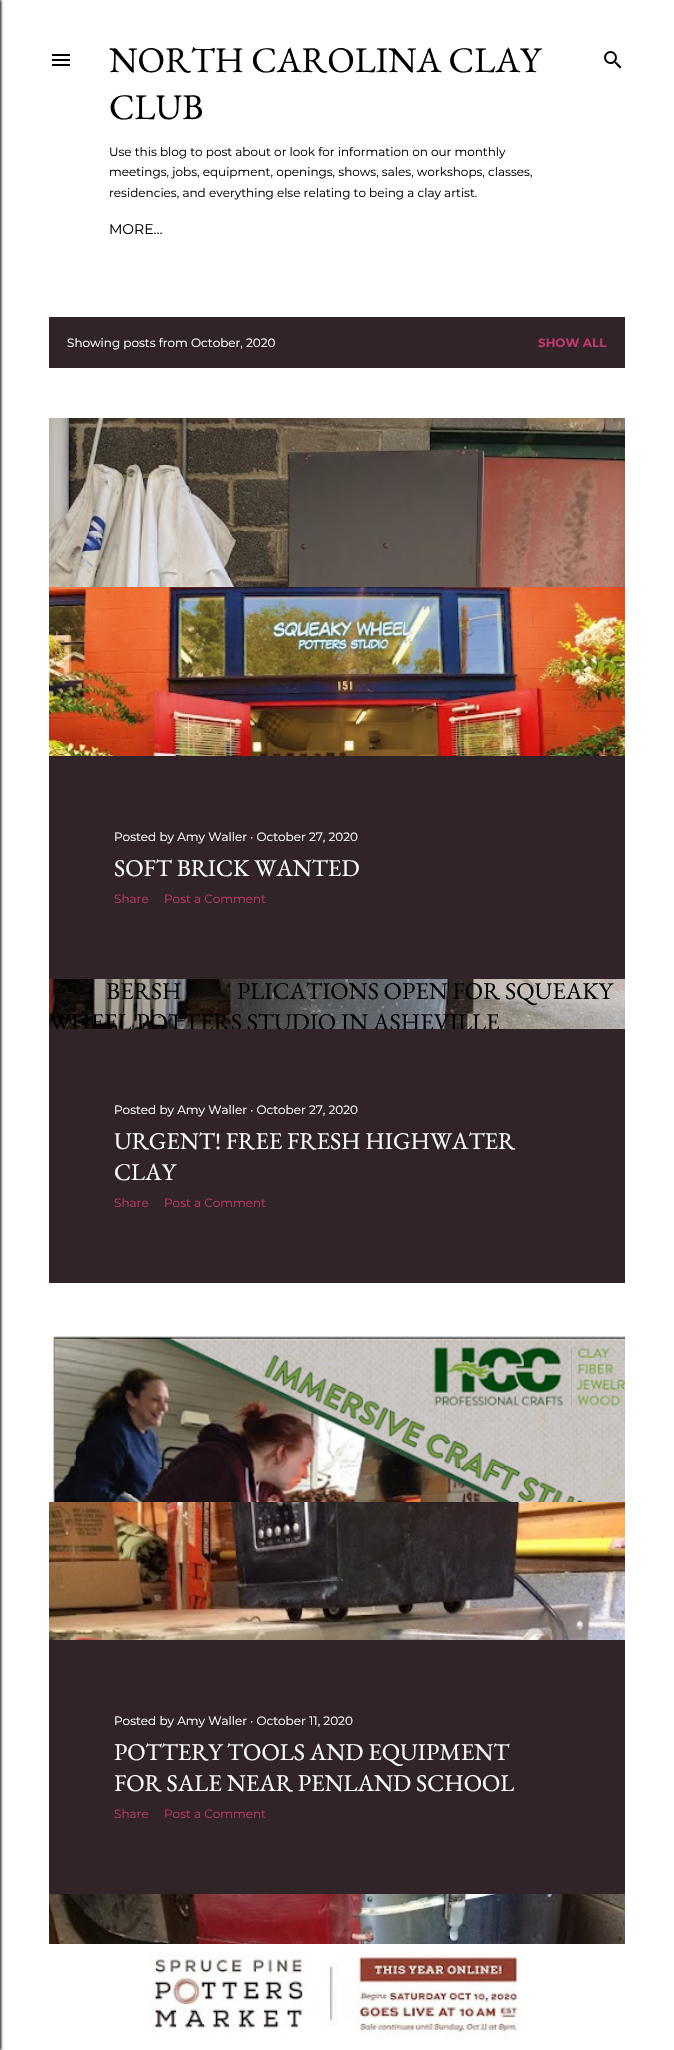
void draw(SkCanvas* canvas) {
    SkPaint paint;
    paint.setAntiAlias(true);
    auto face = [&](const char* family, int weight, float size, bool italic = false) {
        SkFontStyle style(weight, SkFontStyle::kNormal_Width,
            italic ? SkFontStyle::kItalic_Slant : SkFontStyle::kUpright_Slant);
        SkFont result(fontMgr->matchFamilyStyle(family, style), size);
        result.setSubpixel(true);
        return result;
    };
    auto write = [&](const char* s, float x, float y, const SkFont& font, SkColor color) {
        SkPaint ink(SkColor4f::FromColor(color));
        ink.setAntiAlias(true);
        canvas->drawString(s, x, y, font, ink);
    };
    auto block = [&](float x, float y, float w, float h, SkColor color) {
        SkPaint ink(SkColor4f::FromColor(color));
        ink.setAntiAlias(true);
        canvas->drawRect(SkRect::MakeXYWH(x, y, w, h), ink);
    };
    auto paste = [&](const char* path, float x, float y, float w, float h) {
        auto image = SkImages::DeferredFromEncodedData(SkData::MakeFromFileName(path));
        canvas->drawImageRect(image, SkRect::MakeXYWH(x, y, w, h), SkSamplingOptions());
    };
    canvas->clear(SK_ColorWHITE);
    paint.setColor(SK_ColorBLACK);
    paint.setMaskFilter(SkMaskFilter::MakeBlur(kNormal_SkBlurStyle, 1.5f));
    canvas->drawRect(SkRect::MakeXYWH(-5, 0, 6, 2050), paint);
    paint.setMaskFilter(nullptr);
    paste("pic1.png", 52, 54, 18, 12);
    auto kFont1 = face("EB Garamond", 400, 36);
    write("NORTH CAROLINA CLAY", 109, 72, kFont1, SK_ColorBLACK);
    write("CLUB", 109, 119, kFont1, SK_ColorBLACK);
    auto kFont2 = face("Montserrat", 100, 12);
    write("Use this blog to post about or look for information on our monthly", 109, 156, kFont2, SK_ColorBLACK);
    write("meetings, jobs, equipment, openings, shows, sales, workshops, classes,", 109, 176, kFont2, SK_ColorBLACK);
    write("residencies, and everything else relating to being a clay artist.", 109, 197, kFont2, SK_ColorBLACK);
    auto kFont3 = face("Montserrat", 100, 14);
    write("MORE…", 109, 234, kFont3, SK_ColorBLACK);
    paste("pic2.png", 604, 51, 18, 18);
    block(49, 317, 576, 51, SkColorSetRGB(48, 36, 40));
    write("Showing posts from October, 2020", 67, 347, kFont2, SK_ColorWHITE);
    auto kFont4 = face("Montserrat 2", 100, 12);
    write("SHOW ALL", 538, 347, kFont4, SkColorSetRGB(191, 56, 108));
    paste("pic3.png", 49, 418, 576, 611);
    block(49, 756, 576, 223, SkColorSetRGB(48, 36, 40));
    write("Posted by Amy Waller · October 27, 2020", 114, 841, kFont2, SK_ColorWHITE);
    auto kFont5 = face("EB Garamond", 400, 24);
    write("SOFT BRICK WANTED", 114, 876, kFont5, SK_ColorWHITE);
    write("Share", 114, 903, kFont2, SkColorSetRGB(191, 56, 108));
    write("Post a Comment", 164, 903, kFont2, SkColorSetRGB(191, 56, 108));
    paste("pic4.png", 49, 587, 576, 169);
    write("BERSH", 106, 999, kFont5, SK_ColorBLACK);
    write("PLICATIONS OPEN FOR SQUEAKY", 237, 999, kFont5, SK_ColorBLACK);
    write("WHEEL POTTERS STUDIO IN ASHEVILLE", 49, 1030, kFont5, SK_ColorBLACK);
    block(49, 1029, 576, 254, SkColorSetRGB(48, 36, 40));
    write("Posted by Amy Waller · October 27, 2020", 114, 1114, kFont2, SK_ColorWHITE);
    write("URGENT! FREE FRESH HIGHWATER", 114, 1149, kFont5, SK_ColorWHITE);
    write("CLAY", 114, 1180, kFont5, SK_ColorWHITE);
    write("Share", 114, 1207, kFont2, SkColorSetRGB(191, 56, 108));
    write("Post a Comment", 164, 1207, kFont2, SkColorSetRGB(191, 56, 108));
    paste("pic5.png", 52, 1336, 573, 166);
    paste("pic6.png", 49, 1502, 576, 442);
    block(49, 1640, 576, 254, SkColorSetRGB(48, 36, 40));
    write("Posted by Amy Waller · October 11, 2020", 114, 1725, kFont2, SK_ColorWHITE);
    write("POTTERY TOOLS AND EQUIPMENT", 114, 1760, kFont5, SK_ColorWHITE);
    write("FOR SALE NEAR PENLAND SCHOOL", 114, 1791, kFont5, SK_ColorWHITE);
    write("Share", 114, 1818, kFont2, SkColorSetRGB(191, 56, 108));
    write("Post a Comment", 164, 1818, kFont2, SkColorSetRGB(191, 56, 108));
    paste("pic7.png", 49, 1944, 576, 106);
}
